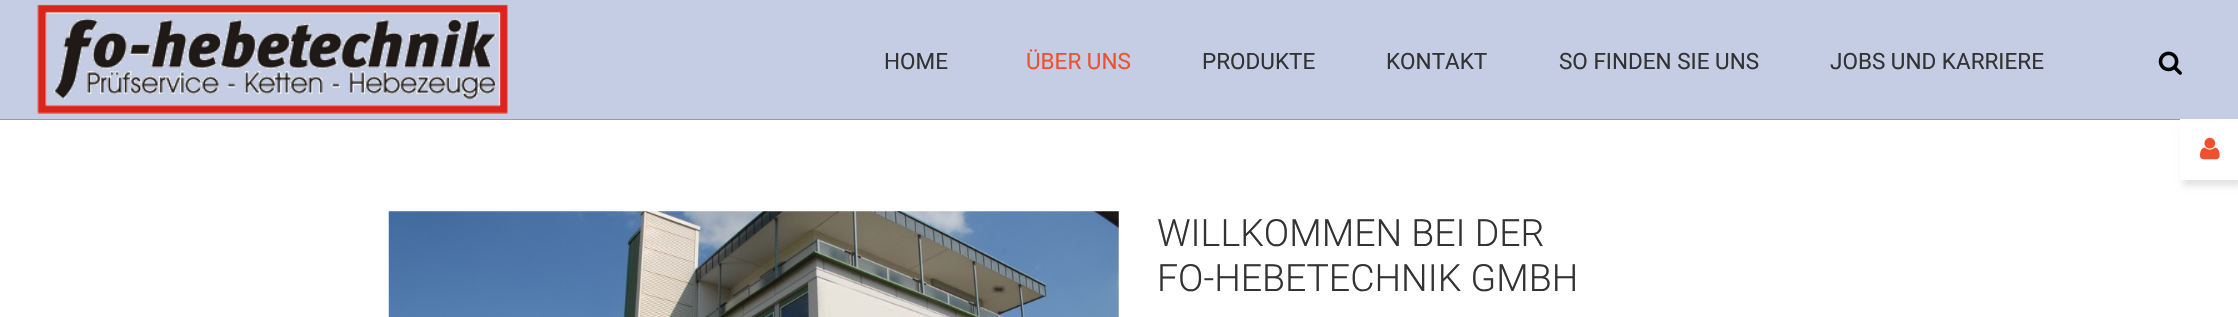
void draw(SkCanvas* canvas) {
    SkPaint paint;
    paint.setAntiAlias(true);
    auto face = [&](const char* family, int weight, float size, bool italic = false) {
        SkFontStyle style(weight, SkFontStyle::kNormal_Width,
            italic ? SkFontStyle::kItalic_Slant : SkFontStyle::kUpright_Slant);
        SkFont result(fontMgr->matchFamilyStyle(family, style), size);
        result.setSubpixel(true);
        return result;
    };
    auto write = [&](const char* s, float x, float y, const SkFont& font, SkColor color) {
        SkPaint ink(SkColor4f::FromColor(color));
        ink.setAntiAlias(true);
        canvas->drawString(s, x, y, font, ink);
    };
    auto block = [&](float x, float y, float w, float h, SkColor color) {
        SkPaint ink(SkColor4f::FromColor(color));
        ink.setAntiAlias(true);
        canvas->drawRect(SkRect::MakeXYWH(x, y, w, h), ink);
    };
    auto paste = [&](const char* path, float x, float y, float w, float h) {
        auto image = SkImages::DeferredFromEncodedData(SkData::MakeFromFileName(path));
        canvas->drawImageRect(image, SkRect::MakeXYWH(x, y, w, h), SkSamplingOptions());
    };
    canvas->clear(SK_ColorWHITE);
    block(0, 0, 2238, 119, SkColorSetRGB(196, 205, 227));
    block(0, 119, 2180, 1, SkColorSetRGB(149, 156, 173));
    paste("pic1.png", 37, 4, 471, 110);
    auto kFont1 = face("Roboto", 400, 22.5f);
    write("HOME", 884, 69, kFont1, SkColorSetRGB(51, 51, 51));
    write("ÜBER UNS", 1026, 69, kFont1, SkColorSetRGB(239, 80, 48));
    write("PRODUKTE", 1202, 69, kFont1, SkColorSetRGB(51, 51, 51));
    write("KONTAKT", 1386, 69, kFont1, SkColorSetRGB(51, 51, 51));
    write("SO FINDEN SIE UNS", 1559, 69, kFont1, SkColorSetRGB(51, 51, 51));
    write("JOBS UND KARRIERE", 1830, 69, kFont1, SkColorSetRGB(51, 51, 51));
    paste("pic2.png", 2158, 51, 24, 24);
    paste("pic3.png", 388, 211, 731, 106);
    auto kFont2 = face("Roboto", 300, 37.5f);
    write("WILLKOMMEN BEI DER", 1157, 246, kFont2, SkColorSetRGB(51, 51, 51));
    write("FO-HEBETECHNIK GMBH", 1157, 291, kFont2, SkColorSetRGB(51, 51, 51));
    paint.setColor(SkColorSetARGB(26, 0, 0, 0));
    paint.setMaskFilter(SkMaskFilter::MakeBlur(kNormal_SkBlurStyle, 3));
    canvas->drawRect(SkRect::MakeXYWH(2183, 125, 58, 61), paint);
    paint.setMaskFilter(nullptr);
    block(2180, 121, 58, 59, SK_ColorWHITE);
    paste("pic4.png", 2200, 137, 20, 23);
}
